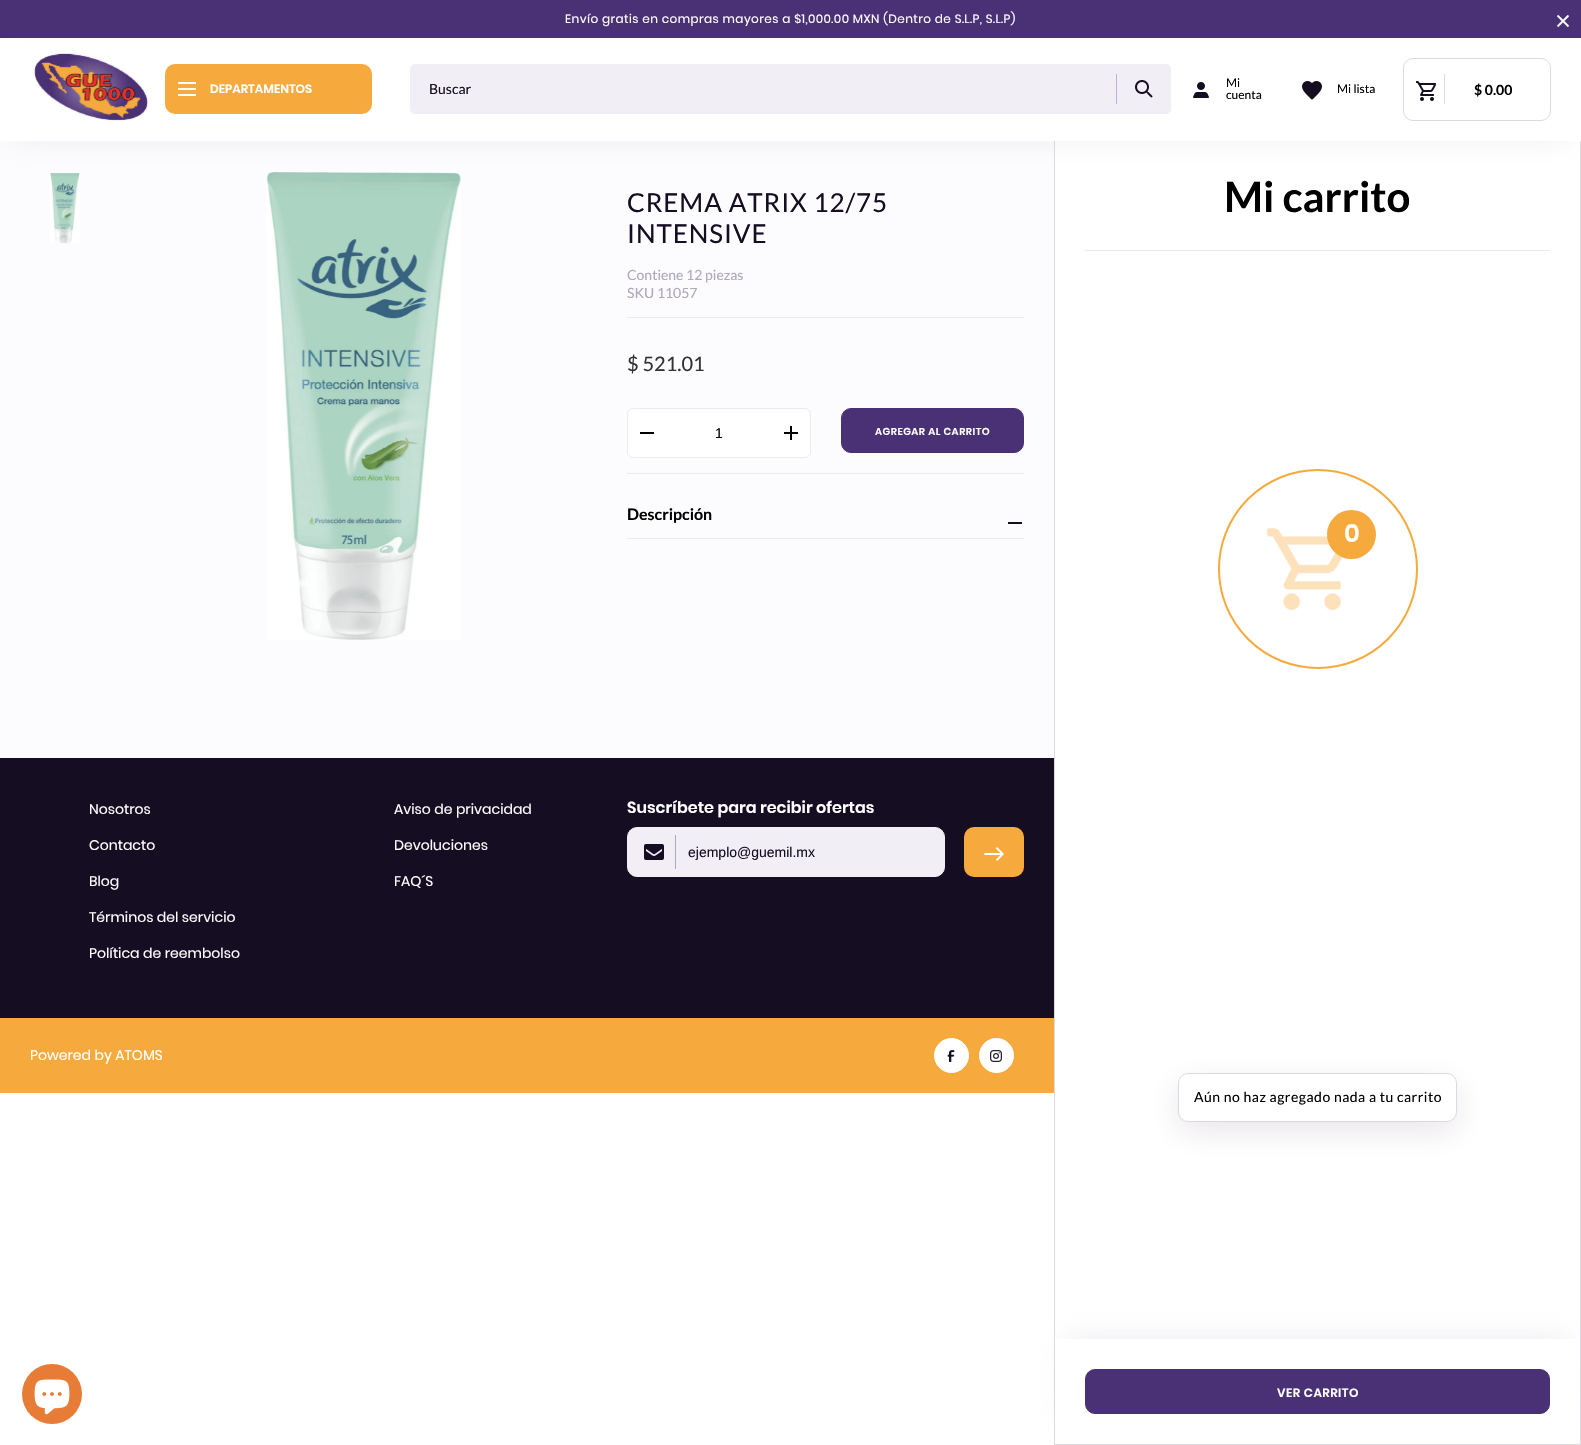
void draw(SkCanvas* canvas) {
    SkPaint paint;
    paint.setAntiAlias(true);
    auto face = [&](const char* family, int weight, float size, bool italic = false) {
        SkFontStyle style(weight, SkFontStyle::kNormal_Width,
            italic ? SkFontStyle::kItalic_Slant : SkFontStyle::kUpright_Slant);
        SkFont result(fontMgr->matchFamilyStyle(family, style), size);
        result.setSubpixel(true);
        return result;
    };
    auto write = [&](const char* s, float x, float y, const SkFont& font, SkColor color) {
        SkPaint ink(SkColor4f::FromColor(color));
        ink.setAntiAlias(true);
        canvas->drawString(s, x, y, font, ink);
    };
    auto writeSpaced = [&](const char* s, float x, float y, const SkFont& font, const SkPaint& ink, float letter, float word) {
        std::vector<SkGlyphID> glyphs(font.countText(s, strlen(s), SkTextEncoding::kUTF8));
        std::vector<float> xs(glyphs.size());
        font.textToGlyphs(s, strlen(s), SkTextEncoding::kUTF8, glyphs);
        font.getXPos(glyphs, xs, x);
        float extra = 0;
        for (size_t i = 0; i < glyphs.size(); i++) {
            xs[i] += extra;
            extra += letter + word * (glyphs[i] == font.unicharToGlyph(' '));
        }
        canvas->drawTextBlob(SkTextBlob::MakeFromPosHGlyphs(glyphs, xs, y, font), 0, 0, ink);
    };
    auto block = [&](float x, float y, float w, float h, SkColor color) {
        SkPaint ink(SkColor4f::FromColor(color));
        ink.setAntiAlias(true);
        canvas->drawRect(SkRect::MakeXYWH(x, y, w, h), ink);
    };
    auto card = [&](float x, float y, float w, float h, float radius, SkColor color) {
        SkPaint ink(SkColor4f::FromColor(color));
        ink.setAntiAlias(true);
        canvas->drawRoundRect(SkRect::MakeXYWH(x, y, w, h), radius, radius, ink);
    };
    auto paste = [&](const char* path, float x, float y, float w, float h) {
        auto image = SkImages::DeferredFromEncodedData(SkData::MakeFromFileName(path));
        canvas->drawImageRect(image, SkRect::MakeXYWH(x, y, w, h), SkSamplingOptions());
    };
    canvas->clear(SK_ColorWHITE);
    paint.setStyle(SkPaint::kStroke_Style);
    paint.setStrokeWidth(1);
    paint.setColor(SkColorSetRGB(221, 217, 227));
    canvas->drawRect(SkRect::MakeXYWH(1054.5f, 140.5f, 526, 1304), paint);
    block(0, 142, 1054, 616, SkColorSetRGB(252, 251, 253));
    paste("pic8.png", 50, 172, 30, 72);
    paste("pic9.png", 266, 172, 195, 468);
    paint.setStyle(SkPaint::kFill_Style);
    paint.setColor(SkColorSetARGB(64, 175, 167, 187));
    paint.setMaskFilter(SkMaskFilter::MakeBlur(kNormal_SkBlurStyle, 14));
    canvas->drawRect(SkRect::MakeXYWH(12, 58, 1557, 79), paint);
    paint.setMaskFilter(nullptr);
    block(0, 0, 1581, 38, SkColorSetRGB(74, 48, 117));
    auto kFont1 = face("Poppins", 400, 12);
    paint.setColor(SK_ColorWHITE);
    writeSpaced("Envío gratis en compras mayores a $1,000.00 MXN (Dentro de S.L.P, S.L.P)", 565, 23, kFont1, paint, 0.43f, 0);
    paste("pic1.png", 1557, 15, 12, 12);
    block(0, 41, 1581, 100, SK_ColorWHITE);
    paste("pic2.png", 33, 53, 115, 69);
    card(165, 64, 207, 50, 10, SkColorSetRGB(246, 170, 61));
    block(178, 82, 18, 2, SK_ColorWHITE);
    block(178, 88, 18, 2, SK_ColorWHITE);
    block(178, 94, 18, 2, SK_ColorWHITE);
    auto kFont2 = face("Poppins", 600, 12);
    write("DEPARTAMENTOS", 210, 93, kFont2, SK_ColorWHITE);
    paint.setColor(SkColorSetRGB(241, 238, 245));
    canvas->drawRoundRect(SkRect::MakeXYWH(410.5f, 64.5f, 760, 49), 4.5f, 4.5f, paint);
    paint.setStyle(SkPaint::kStroke_Style);
    canvas->drawRoundRect(SkRect::MakeXYWH(410.5f, 64.5f, 760, 49), 4.5f, 4.5f, paint);
    auto kFont3 = face("Lato", 400, 14);
    write("Buscar", 429, 94, kFont3, SkColorSetRGB(21, 13, 34));
    block(1116, 74, 1, 30, SkColorSetRGB(192, 177, 218));
    paste("pic3.png", 1135, 80, 18, 18);
    paste("pic4.png", 1193, 82, 16, 16);
    auto kFont4 = face("Lato", 400, 12);
    write("Mi", 1226, 87, kFont4, SK_ColorBLACK);
    write("cuenta", 1226, 99, kFont4, SK_ColorBLACK);
    paste("pic5.png", 1302, 81, 20, 19);
    write("Mi lista", 1337, 93, kFont4, SK_ColorBLACK);
    paint.setColor(SkColorSetRGB(221, 217, 227));
    canvas->drawRoundRect(SkRect::MakeXYWH(1403.5f, 58.5f, 147, 62), 9.5f, 9.5f, paint);
    paste("pic6.png", 1416, 81, 20, 20);
    block(1444, 74, 1, 30, SkColorSetRGB(221, 217, 227));
    auto kFont5 = face("Lato", 700, 14);
    write("$ 0.00", 1474, 95, kFont5, SK_ColorBLACK);
    auto kFont6 = face("Lato", 700, 42);
    write("Mi carrito", 1224, 212, kFont6, SK_ColorBLACK);
    block(1085, 250, 465, 1, SkColorSetRGB(235, 235, 235));
    paint.setStrokeWidth(2);
    paint.setColor(SkColorSetRGB(246, 170, 61));
    canvas->drawCircle(1318, 569, 99, paint);
    paste("pic7.png", 1266, 527, 77, 84);
    paint.setStyle(SkPaint::kFill_Style);
    canvas->drawCircle(1351.5f, 534.5f, 24.5f, paint);
    auto kFont7 = face("Poppins", 600, 25);
    write("0", 1344, 542, kFont7, SK_ColorWHITE);
    paint.setColor(SkColorSetARGB(26, 51, 14, 59));
    paint.setMaskFilter(SkMaskFilter::MakeBlur(kNormal_SkBlurStyle, 15));
    canvas->drawRoundRect(SkRect::MakeXYWH(1178, 1083, 279, 49), 10, 10, paint);
    paint.setMaskFilter(nullptr);
    paint.setColor(SK_ColorWHITE);
    canvas->drawRoundRect(SkRect::MakeXYWH(1178.5f, 1073.5f, 278, 48), 9.5f, 9.5f, paint);
    paint.setStyle(SkPaint::kStroke_Style);
    paint.setStrokeWidth(1);
    paint.setColor(SkColorSetRGB(221, 217, 227));
    canvas->drawRoundRect(SkRect::MakeXYWH(1178.5f, 1073.5f, 278, 48), 9.5f, 9.5f, paint);
    paint.setStyle(SkPaint::kFill_Style);
    paint.setColor(SK_ColorBLACK);
    writeSpaced("Aún no haz agregado nada a tu carrito", 1194, 1102, kFont3, paint, 0.5f, 0);
    canvas->save();
    canvas->clipPath(SkPathBuilder(SkPathFillType::kEvenOdd).moveTo(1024, 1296).lineTo(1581, 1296).lineTo(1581, 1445).lineTo(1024, 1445).close().moveTo(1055, 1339).lineTo(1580, 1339).lineTo(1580, 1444).lineTo(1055, 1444).close().detach(), true);
    paint.setColor(SkColorSetARGB(64, 175, 167, 187));
    paint.setMaskFilter(SkMaskFilter::MakeBlur(kNormal_SkBlurStyle, 14));
    canvas->drawRect(SkRect::MakeXYWH(1067, 1339, 501, 81), paint);
    paint.setMaskFilter(nullptr);
    canvas->restore();
    paint.setColor(SkColorSetRGB(74, 48, 117));
    canvas->drawRoundRect(SkRect::MakeXYWH(1085.5f, 1369.5f, 464, 44), 9.5f, 9.5f, paint);
    paint.setStyle(SkPaint::kStroke_Style);
    canvas->drawRoundRect(SkRect::MakeXYWH(1085.5f, 1369.5f, 464, 44), 9.5f, 9.5f, paint);
    paint.setStyle(SkPaint::kFill_Style);
    paint.setColor(SK_ColorWHITE);
    writeSpaced("VER CARRITO", 1277, 1397, kFont2, paint, 0.5f, 0);
    auto kFont8 = face("Lato", 400, 26);
    paint.setColor(SkColorSetRGB(21, 13, 34));
    writeSpaced("CREMA ATRIX 12/75", 627, 212, kFont8, paint, 0.9f, 0);
    writeSpaced("INTENSIVE", 627, 243, kFont8, paint, 0.9f, 0);
    block(627, 317, 397, 1, SkColorSetRGB(235, 235, 235));
    write("Contiene 12 piezas", 627, 280, kFont3, SkColorSetRGB(175, 167, 187));
    write("SKU 11057", 627, 298, kFont3, SkColorSetRGB(175, 167, 187));
    auto kFont9 = face("Lato", 400, 20);
    write("$ 521.01", 627, 371, kFont9, SkColorSetRGB(51, 50, 50));
    block(627, 473, 397, 1, SkColorSetRGB(235, 235, 235));
    paint.setColor(SK_ColorWHITE);
    canvas->drawRoundRect(SkRect::MakeXYWH(627.5f, 408.5f, 183, 49), 5.5f, 5.5f, paint);
    paint.setStyle(SkPaint::kStroke_Style);
    paint.setColor(SkColorSetRGB(235, 235, 235));
    canvas->drawRoundRect(SkRect::MakeXYWH(627.5f, 408.5f, 183, 49), 5.5f, 5.5f, paint);
    block(640, 432, 14, 2, SK_ColorBLACK);
    auto kFont10 = face("Liberation Sans", 400, 14);
    write("1", 715, 438, kFont10, SK_ColorBLACK);
    block(790, 426, 2, 14, SK_ColorBLACK);
    block(784, 432, 14, 2, SK_ColorBLACK);
    paint.setStyle(SkPaint::kFill_Style);
    paint.setColor(SkColorSetRGB(74, 48, 117));
    canvas->drawRoundRect(SkRect::MakeXYWH(841.5f, 408.5f, 182, 44), 9.5f, 9.5f, paint);
    paint.setStyle(SkPaint::kStroke_Style);
    canvas->drawRoundRect(SkRect::MakeXYWH(841.5f, 408.5f, 182, 44), 9.5f, 9.5f, paint);
    auto kFont11 = face("Poppins", 600, 10);
    paint.setStyle(SkPaint::kFill_Style);
    paint.setColor(SK_ColorWHITE);
    writeSpaced("AGREGAR AL CARRITO", 875, 435, kFont11, paint, 0.5f, 0);
    block(627, 538, 397, 1, SkColorSetRGB(235, 235, 235));
    auto kFont12 = face("Lato", 700, 16);
    write("Descripción", 627, 520, kFont12, SK_ColorBLACK);
    block(1008, 522, 14, 2, SkColorSetRGB(21, 13, 34));
    block(0, 758, 1054, 260, SkColorSetRGB(21, 13, 34));
    auto kFont13 = face("Poppins", 400, 14);
    write("Nosotros", 89, 814, kFont13, SK_ColorWHITE);
    write("Contacto", 89, 850, kFont13, SK_ColorWHITE);
    write("Blog", 89, 886, kFont13, SK_ColorWHITE);
    write("Términos del servicio", 89, 922, kFont13, SK_ColorWHITE);
    write("Política de reembolso", 89, 958, kFont13, SK_ColorWHITE);
    write("Aviso de privacidad", 394, 814, kFont13, SK_ColorWHITE);
    write("Devoluciones", 394, 850, kFont13, SK_ColorWHITE);
    write("FAQ´S", 394, 886, kFont13, SK_ColorWHITE);
    auto kFont14 = face("Poppins", 600, 16);
    write("Suscríbete para recibir ofertas", 627, 813, kFont14, SK_ColorWHITE);
    paint.setColor(SkColorSetRGB(241, 238, 245));
    canvas->drawRoundRect(SkRect::MakeXYWH(627.5f, 827.5f, 317, 49), 9.5f, 9.5f, paint);
    paint.setStyle(SkPaint::kStroke_Style);
    canvas->drawRoundRect(SkRect::MakeXYWH(627.5f, 827.5f, 317, 49), 9.5f, 9.5f, paint);
    paste("pic10.png", 644, 844, 20, 16);
    block(675, 835, 1, 34, SkColorSetRGB(175, 167, 187));
    write("ejemplo@guemil.mx", 688, 857, kFont10, SkColorSetRGB(21, 13, 34));
    card(964, 827, 60, 50, 10, SkColorSetRGB(246, 170, 61));
    paste("pic11.png", 984, 847, 20, 14);
    block(0, 1018, 1054, 75, SkColorSetRGB(246, 170, 61));
    write("Powered by ATOMS", 30, 1060, kFont13, SK_ColorWHITE);
    paint.setStyle(SkPaint::kFill_Style);
    paint.setColor(SK_ColorWHITE);
    canvas->drawCircle(951.5f, 1055.5f, 17, paint);
    paint.setStyle(SkPaint::kStroke_Style);
    canvas->drawCircle(951.5f, 1055.5f, 17, paint);
    paste("pic12.png", 947, 1050, 8, 12);
    paint.setStyle(SkPaint::kFill_Style);
    canvas->drawCircle(996.5f, 1055.5f, 17, paint);
    paint.setStyle(SkPaint::kStroke_Style);
    canvas->drawCircle(996.5f, 1055.5f, 17, paint);
    paste("pic13.png", 990, 1050, 12, 12);
    paint.setStyle(SkPaint::kFill_Style);
    paint.setColor(SkColorSetRGB(230, 124, 53));
    canvas->drawCircle(52, 1394, 30, paint);
    paste("pic14.png", 34, 1379, 36, 36);
}
